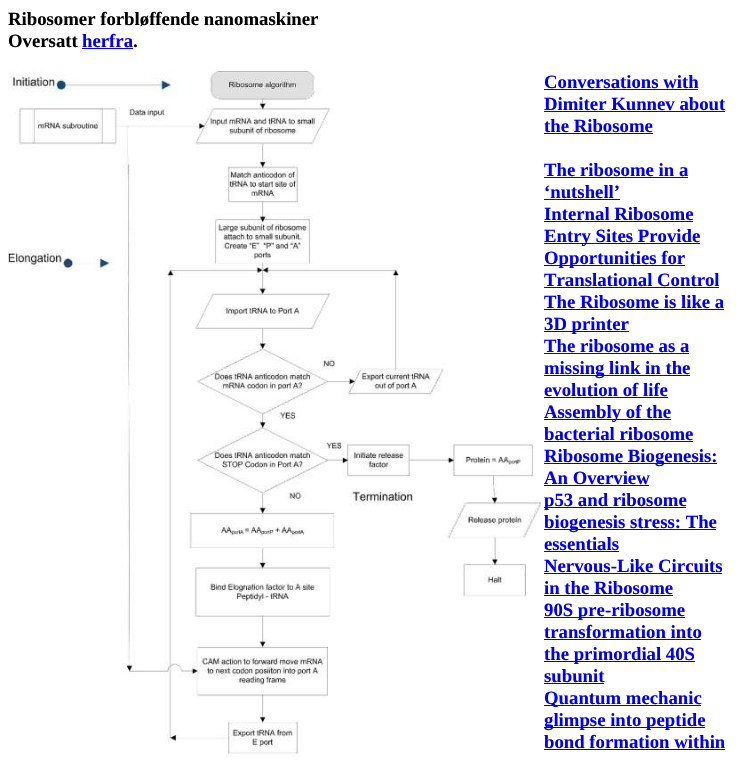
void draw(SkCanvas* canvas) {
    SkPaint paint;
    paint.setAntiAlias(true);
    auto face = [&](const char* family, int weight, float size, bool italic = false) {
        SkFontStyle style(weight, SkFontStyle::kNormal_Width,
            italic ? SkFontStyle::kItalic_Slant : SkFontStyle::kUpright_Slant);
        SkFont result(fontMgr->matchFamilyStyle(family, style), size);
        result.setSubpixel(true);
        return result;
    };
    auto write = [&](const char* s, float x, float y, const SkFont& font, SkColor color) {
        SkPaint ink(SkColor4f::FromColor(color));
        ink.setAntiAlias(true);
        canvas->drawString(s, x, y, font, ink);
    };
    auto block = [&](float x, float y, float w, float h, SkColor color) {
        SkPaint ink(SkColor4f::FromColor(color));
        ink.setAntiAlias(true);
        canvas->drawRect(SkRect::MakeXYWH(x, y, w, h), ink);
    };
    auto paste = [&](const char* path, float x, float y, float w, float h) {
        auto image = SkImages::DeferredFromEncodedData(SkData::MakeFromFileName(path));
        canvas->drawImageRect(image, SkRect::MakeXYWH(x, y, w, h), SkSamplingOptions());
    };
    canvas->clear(SK_ColorWHITE);
    auto kFont1 = face("Liberation Serif", 700, 18.75f);
    write("Ribosomer forbløffende nanomaskiner", 8, 25, kFont1, SK_ColorBLACK);
    write("Oversatt", 8, 47, kFont1, SK_ColorBLACK);
    write("herfra", 82, 47, kFont1, SkColorSetRGB(0, 0, 238));
    block(82, 48, 51, 1, SkColorSetRGB(0, 0, 238));
    write(".", 133, 47, kFont1, SK_ColorBLACK);
    paste("pic1.png", 8, 71, 533, 685);
    write("Conversations with", 544, 88, kFont1, SkColorSetRGB(0, 0, 238));
    block(544, 89, 154, 1, SkColorSetRGB(0, 0, 238));
    write("Dimiter Kunnev about", 544, 110, kFont1, SkColorSetRGB(0, 0, 238));
    block(544, 111, 181, 1, SkColorSetRGB(0, 0, 238));
    write("the Ribosome", 544, 132, kFont1, SkColorSetRGB(0, 0, 238));
    block(544, 133, 109, 1, SkColorSetRGB(0, 0, 238));
    write("The ribosome in a", 544, 176, kFont1, SkColorSetRGB(0, 0, 238));
    block(544, 177, 144, 1, SkColorSetRGB(0, 0, 238));
    write("‘nutshell’", 544, 198, kFont1, SkColorSetRGB(0, 0, 238));
    block(544, 199, 76, 1, SkColorSetRGB(0, 0, 238));
    write("Internal Ribosome", 544, 220, kFont1, SkColorSetRGB(0, 0, 238));
    block(544, 221, 149, 1, SkColorSetRGB(0, 0, 238));
    block(544, 243, 156, 1, SkColorSetRGB(0, 0, 238));
    write("Entry Sites Provide", 544, 242, kFont1, SkColorSetRGB(0, 0, 238));
    block(544, 265, 141, 1, SkColorSetRGB(0, 0, 238));
    write("Opportunities for", 544, 264, kFont1, SkColorSetRGB(0, 0, 238));
    write("Translational Control", 544, 286, kFont1, SkColorSetRGB(0, 0, 238));
    block(544, 287, 175, 1, SkColorSetRGB(0, 0, 238));
    write("The Ribosome is like a", 544, 308, kFont1, SkColorSetRGB(0, 0, 238));
    block(544, 309, 180, 1, SkColorSetRGB(0, 0, 238));
    block(544, 331, 85, 1, SkColorSetRGB(0, 0, 238));
    write("3D printer", 544, 330, kFont1, SkColorSetRGB(0, 0, 238));
    write("The ribosome as a", 544, 352, kFont1, SkColorSetRGB(0, 0, 238));
    block(544, 353, 145, 1, SkColorSetRGB(0, 0, 238));
    block(544, 375, 146, 1, SkColorSetRGB(0, 0, 238));
    write("missing link in the", 544, 374, kFont1, SkColorSetRGB(0, 0, 238));
    write("evolution of life", 544, 396, kFont1, SkColorSetRGB(0, 0, 238));
    block(544, 397, 124, 1, SkColorSetRGB(0, 0, 238));
    block(544, 419, 127, 1, SkColorSetRGB(0, 0, 238));
    write("Assembly of the", 544, 418, kFont1, SkColorSetRGB(0, 0, 238));
    write("bacterial ribosome", 544, 440, kFont1, SkColorSetRGB(0, 0, 238));
    block(544, 441, 149, 1, SkColorSetRGB(0, 0, 238));
    block(544, 463, 173, 1, SkColorSetRGB(0, 0, 238));
    write("Ribosome Biogenesis:", 544, 462, kFont1, SkColorSetRGB(0, 0, 238));
    write("An Overview", 544, 484, kFont1, SkColorSetRGB(0, 0, 238));
    block(544, 485, 105, 1, SkColorSetRGB(0, 0, 238));
    block(544, 507, 142, 1, SkColorSetRGB(0, 0, 238));
    write("p53 and ribosome", 544, 506, kFont1, SkColorSetRGB(0, 0, 238));
    block(544, 529, 172, 1, SkColorSetRGB(0, 0, 238));
    write("biogenesis stress: The", 544, 528, kFont1, SkColorSetRGB(0, 0, 238));
    write("essentials", 544, 550, kFont1, SkColorSetRGB(0, 0, 238));
    block(544, 551, 75, 1, SkColorSetRGB(0, 0, 238));
    write("Nervous-Like Circuits", 544, 572, kFont1, SkColorSetRGB(0, 0, 238));
    block(544, 573, 178, 1, SkColorSetRGB(0, 0, 238));
    write("in the Ribosome", 544, 594, kFont1, SkColorSetRGB(0, 0, 238));
    block(544, 595, 129, 1, SkColorSetRGB(0, 0, 238));
    block(544, 617, 141, 1, SkColorSetRGB(0, 0, 238));
    write("90S pre-ribosome", 544, 616, kFont1, SkColorSetRGB(0, 0, 238));
    write("transformation into", 544, 638, kFont1, SkColorSetRGB(0, 0, 238));
    block(544, 639, 157, 1, SkColorSetRGB(0, 0, 238));
    block(544, 661, 151, 1, SkColorSetRGB(0, 0, 238));
    write("the primordial 40S", 544, 660, kFont1, SkColorSetRGB(0, 0, 238));
    write("subunit", 544, 682, kFont1, SkColorSetRGB(0, 0, 238));
    block(544, 683, 60, 1, SkColorSetRGB(0, 0, 238));
    block(544, 705, 157, 1, SkColorSetRGB(0, 0, 238));
    write("Quantum mechanic", 544, 704, kFont1, SkColorSetRGB(0, 0, 238));
    block(544, 727, 161, 1, SkColorSetRGB(0, 0, 238));
    write("glimpse into peptide", 544, 726, kFont1, SkColorSetRGB(0, 0, 238));
    write("bond formation within", 544, 748, kFont1, SkColorSetRGB(0, 0, 238));
    block(544, 749, 181, 1, SkColorSetRGB(0, 0, 238));
}
